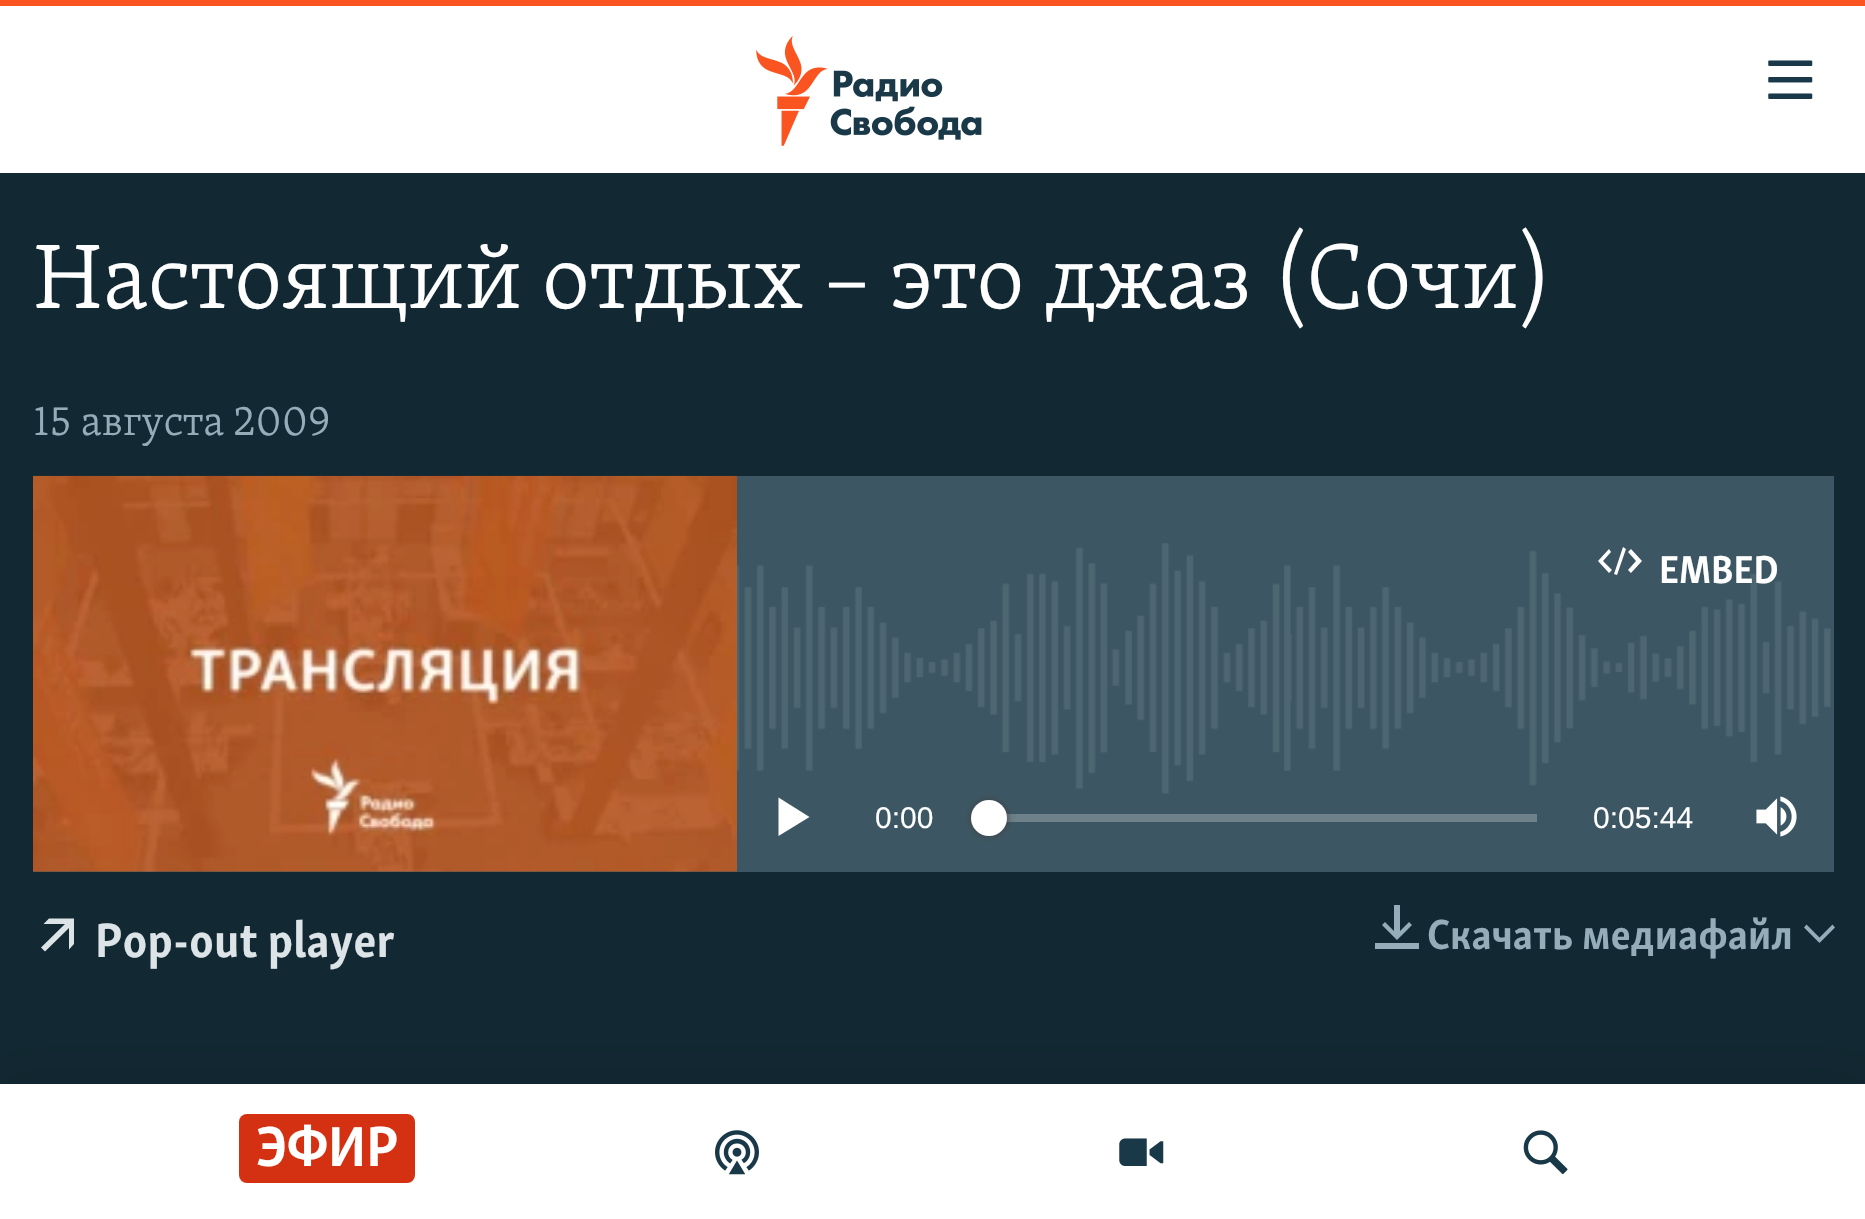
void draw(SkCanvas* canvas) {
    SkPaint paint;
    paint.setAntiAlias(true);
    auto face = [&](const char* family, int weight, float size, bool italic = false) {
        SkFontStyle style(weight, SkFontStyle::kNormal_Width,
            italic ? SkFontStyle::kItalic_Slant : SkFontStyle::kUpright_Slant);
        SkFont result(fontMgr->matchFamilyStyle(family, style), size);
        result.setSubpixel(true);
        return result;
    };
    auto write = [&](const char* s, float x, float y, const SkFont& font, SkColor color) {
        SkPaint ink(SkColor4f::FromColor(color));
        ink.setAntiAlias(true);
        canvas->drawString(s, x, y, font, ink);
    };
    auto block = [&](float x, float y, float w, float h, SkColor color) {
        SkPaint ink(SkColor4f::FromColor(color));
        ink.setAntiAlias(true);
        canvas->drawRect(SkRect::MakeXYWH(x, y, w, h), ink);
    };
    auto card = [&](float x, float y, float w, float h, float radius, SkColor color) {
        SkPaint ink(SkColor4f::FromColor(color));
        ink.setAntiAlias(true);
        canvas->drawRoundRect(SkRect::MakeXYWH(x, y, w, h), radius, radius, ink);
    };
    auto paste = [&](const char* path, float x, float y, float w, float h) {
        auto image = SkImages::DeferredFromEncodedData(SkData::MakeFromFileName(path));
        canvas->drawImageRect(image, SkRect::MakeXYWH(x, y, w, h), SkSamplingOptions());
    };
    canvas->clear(SK_ColorWHITE);
    block(0, 173, 1865, 911, SkColorSetRGB(18, 40, 50));
    auto kFont1 = face("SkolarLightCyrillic", 300, 94);
    write("Настоящий отдых – это джаз (Сочи)", 33, 308, kFont1, SK_ColorWHITE);
    auto kFont2 = face("SkolarLightCyrillic", 300, 43.25f);
    write("15 августа 2009", 33, 435, kFont2, SkColorSetRGB(149, 173, 185));
    block(33, 476, 1801, 396, SkColorSetRGB(60, 87, 99));
    paste("pic1.png", 737, 543, 1094, 251);
    paste("pic2.png", 33, 475, 704, 397);
    paint.setColor(SK_ColorWHITE);
    canvas->drawPath(SkPathBuilder().moveTo(1626, 549).lineTo(1617, 575).lineTo(1614, 574).lineTo(1623, 547).close().moveTo(1612, 570).lineTo(1603, 561).lineTo(1611, 552).lineTo(1609, 549).lineTo(1598, 561).lineTo(1609, 573).close().moveTo(1628, 570).lineTo(1636, 561).lineTo(1628, 552).lineTo(1631, 549).lineTo(1642, 561).lineTo(1631, 573).close().detach(), paint);
    auto kFont3 = face("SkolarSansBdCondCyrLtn", 700, 40);
    write("EMBED", 1659, 583, kFont3, SK_ColorWHITE);
    canvas->drawPath(SkPathBuilder().moveTo(778.5f, 836).lineTo(809.5f, 817).lineTo(778.5f, 797.5f).close().detach(), paint);
    auto kFont4 = face("Liberation Sans", 400, 30);
    write("0:00", 875, 828, kFont4, SK_ColorWHITE);
    block(1006, 814, 531, 8, SkColorSetRGB(109, 129, 138));
    paint.setColor(SkColorSetRGB(65, 65, 68));
    paint.setMaskFilter(SkMaskFilter::MakeBlur(kNormal_SkBlurStyle, 4));
    canvas->drawRoundRect(SkRect::MakeXYWH(971, 800, 36, 36), 18, 18, paint);
    paint.setMaskFilter(nullptr);
    paint.setColor(SK_ColorWHITE);
    canvas->drawCircle(989, 818, 18, paint);
    write("0:05:44", 1593, 828, kFont4, SK_ColorWHITE);
    paste("pic3.png", 1756, 796, 41, 41);
    paint.setColor(SkColorSetRGB(220, 228, 232));
    canvas->drawPath(SkPathBuilder().moveTo(74, 918.5f).lineTo(49, 918.5f).lineTo(43.5f, 924).lineTo(65, 924).lineTo(41, 947.5f).lineTo(45, 951.5f).lineTo(69, 928).lineTo(69, 949.5f).lineTo(74, 944).close().detach(), paint);
    auto kFont5 = face("SkolarSansBdCondCyrLtn", 700, 49.5f);
    write("Pop-out player", 95, 957, kFont5, SkColorSetRGB(220, 228, 232));
    paint.setColor(SkColorSetRGB(149, 173, 185));
    canvas->drawPath(SkPathBuilder().moveTo(1419, 943).lineTo(1419, 949).lineTo(1375, 949).lineTo(1375, 943).close().moveTo(1412, 925).lineTo(1409, 922).lineTo(1400, 931).lineTo(1400, 905).lineTo(1394, 905).lineTo(1394, 931).lineTo(1385, 922).lineTo(1382, 925).lineTo(1397, 940).close().detach(), paint);
    auto kFont6 = face("SkolarSansBdCondCyrLtn", 700, 43.25f);
    write("Скачать медиафайл", 1427, 949, kFont6, SkColorSetRGB(149, 173, 185));
    canvas->drawPath(SkPathBuilder().moveTo(1804, 927.5f).lineTo(1819.5f, 943).lineTo(1835, 927.5f).lineTo(1832.5f, 924.5f).lineTo(1819.5f, 937.5f).lineTo(1806.5f, 924.5f).close().detach(), paint);
    block(0, 0, 1865, 6, SkColorSetRGB(250, 84, 32));
    paste("pic4.png", 756, 36, 226, 110);
    paste("pic5.png", 1768, 60, 45, 39);
    paint.setColor(SkColorSetARGB(26, 0, 0, 0));
    paint.setMaskFilter(SkMaskFilter::MakeBlur(kNormal_SkBlurStyle, 27.5f));
    canvas->drawRect(SkRect::MakeXYWH(0, 1084, 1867, 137), paint);
    paint.setMaskFilter(nullptr);
    block(0, 1084, 1865, 135, SK_ColorWHITE);
    card(239, 1114, 176, 69, 8, SkColorSetRGB(211, 49, 17));
    auto kFont7 = face("SkolarSansBdCondCyrLtn", 700, 58);
    write("ЭФИР", 256, 1166, kFont7, SK_ColorWHITE);
    paste("pic6.png", 715, 1130, 44, 45);
    paste("pic7.png", 1119, 1138, 45, 28);
    paste("pic8.png", 1523, 1130, 45, 45);
}
